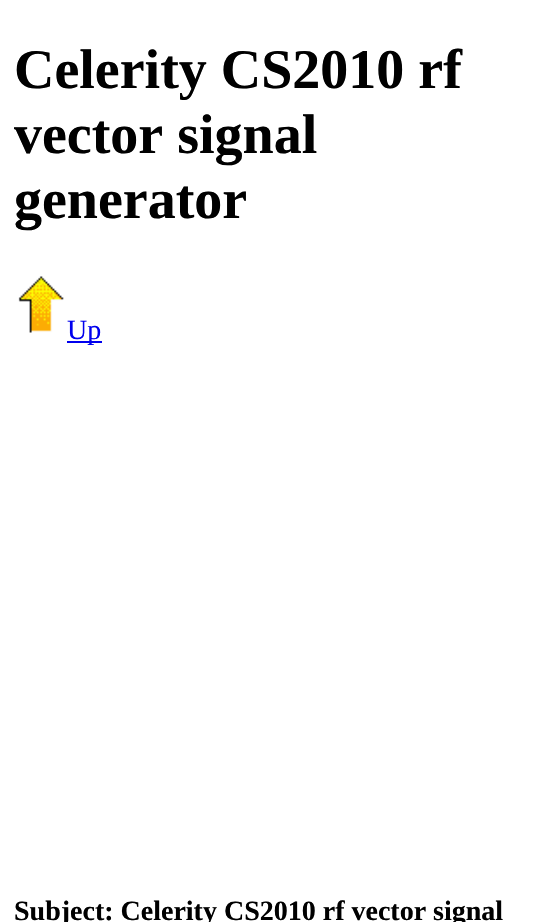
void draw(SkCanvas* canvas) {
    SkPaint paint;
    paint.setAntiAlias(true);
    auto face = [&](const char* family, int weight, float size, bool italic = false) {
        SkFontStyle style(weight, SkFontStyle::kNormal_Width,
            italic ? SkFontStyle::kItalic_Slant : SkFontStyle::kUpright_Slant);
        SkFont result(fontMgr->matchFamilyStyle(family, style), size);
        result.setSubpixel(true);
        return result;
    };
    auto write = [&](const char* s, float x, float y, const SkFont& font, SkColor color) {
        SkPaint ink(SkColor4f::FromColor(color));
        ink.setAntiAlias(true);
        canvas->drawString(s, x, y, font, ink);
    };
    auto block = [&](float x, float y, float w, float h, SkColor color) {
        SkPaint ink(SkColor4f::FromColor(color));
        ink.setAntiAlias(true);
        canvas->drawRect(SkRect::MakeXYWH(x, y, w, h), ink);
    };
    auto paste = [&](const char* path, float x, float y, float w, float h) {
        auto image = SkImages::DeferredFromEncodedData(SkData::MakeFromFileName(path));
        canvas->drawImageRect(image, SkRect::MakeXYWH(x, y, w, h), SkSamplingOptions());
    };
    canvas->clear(SK_ColorWHITE);
    auto kFont1 = face("Liberation Serif", 700, 56);
    write("Celerity CS2010 rf", 14, 88, kFont1, SK_ColorBLACK);
    write("vector signal", 14, 153, kFont1, SK_ColorBLACK);
    write("generator", 14, 218, kFont1, SK_ColorBLACK);
    paste("pic1.png", 18, 276, 46, 57);
    block(67, 341, 35, 2, SkColorSetRGB(0, 0, 238));
    auto kFont2 = face("Liberation Serif", 400, 28);
    write("Up", 67, 339, kFont2, SkColorSetRGB(0, 0, 238));
    auto kFont3 = face("Liberation Serif", 700, 28);
    write("Subject: Celerity CS2010 rf vector signal", 14, 920, kFont3, SK_ColorBLACK);
}
